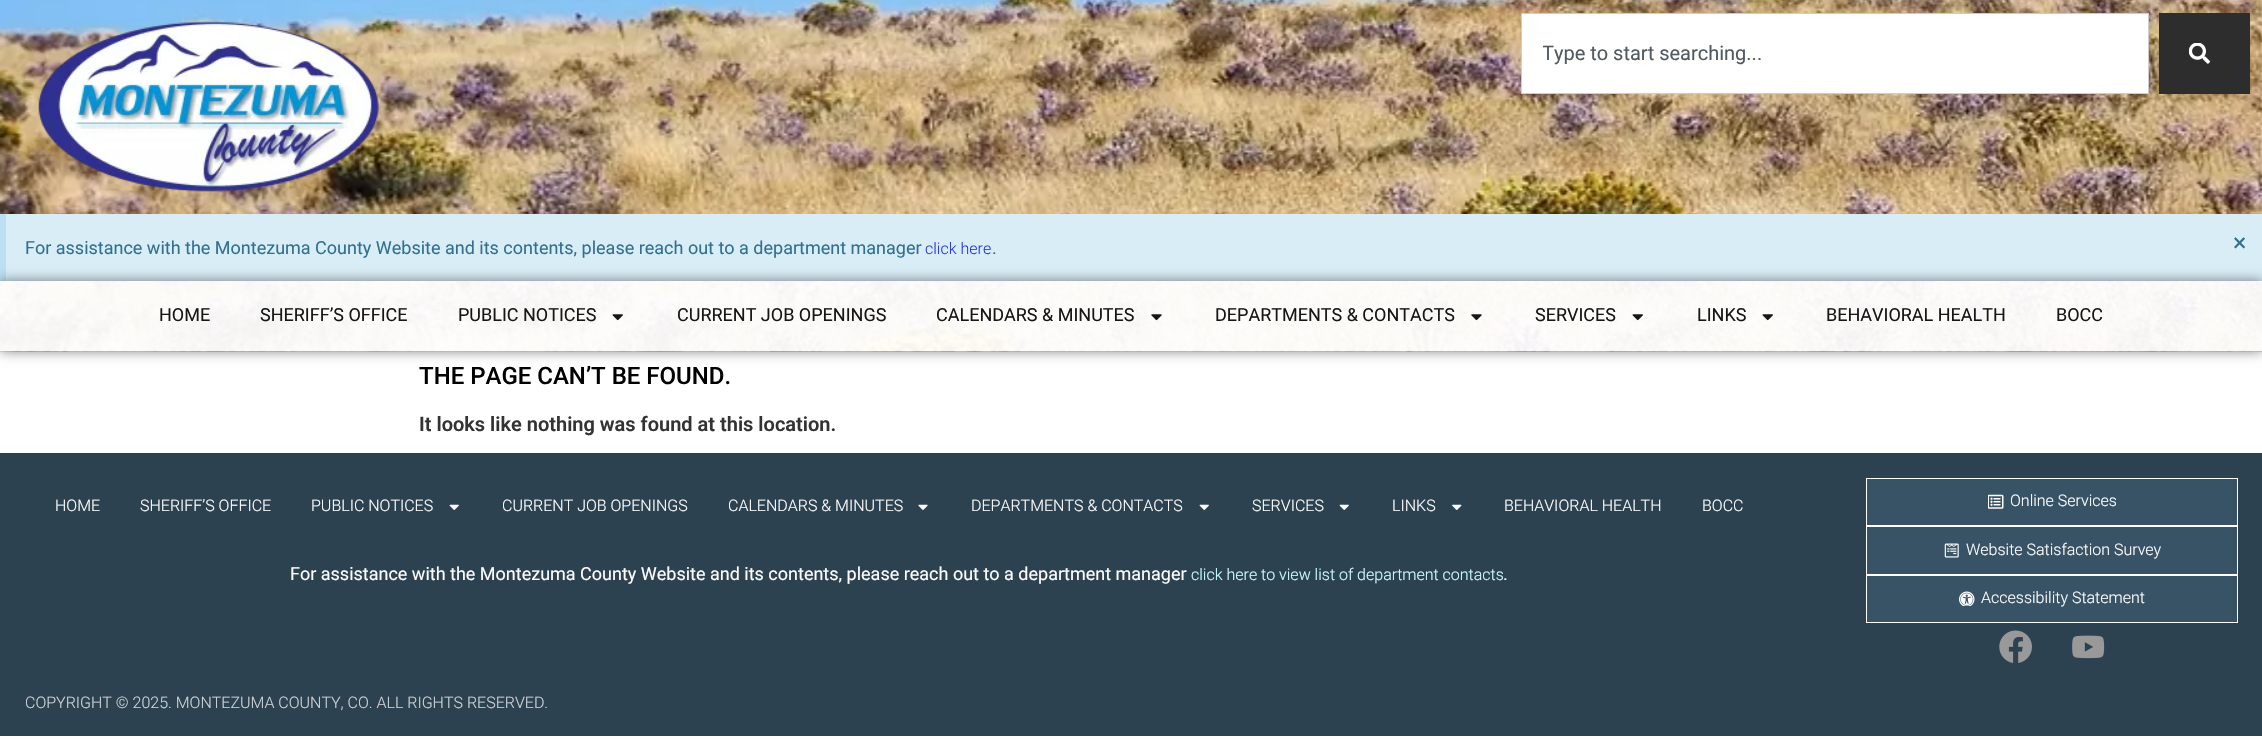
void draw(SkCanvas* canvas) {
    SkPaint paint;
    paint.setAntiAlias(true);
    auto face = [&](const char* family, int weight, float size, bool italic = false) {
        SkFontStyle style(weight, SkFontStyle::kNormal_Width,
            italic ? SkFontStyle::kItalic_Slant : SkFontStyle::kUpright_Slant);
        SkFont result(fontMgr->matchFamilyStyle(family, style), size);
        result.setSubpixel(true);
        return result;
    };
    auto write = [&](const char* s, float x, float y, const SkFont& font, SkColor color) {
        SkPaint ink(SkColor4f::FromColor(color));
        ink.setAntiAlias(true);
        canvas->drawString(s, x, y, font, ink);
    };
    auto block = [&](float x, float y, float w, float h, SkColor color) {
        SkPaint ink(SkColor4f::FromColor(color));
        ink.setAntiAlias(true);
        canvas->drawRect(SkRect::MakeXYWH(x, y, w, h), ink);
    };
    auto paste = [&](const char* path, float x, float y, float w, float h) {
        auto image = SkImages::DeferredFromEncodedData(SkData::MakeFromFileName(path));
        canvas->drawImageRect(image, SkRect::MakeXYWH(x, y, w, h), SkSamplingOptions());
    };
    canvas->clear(SK_ColorWHITE);
    paste("pic1.png", 0, 0, 2262, 352);
    paste("pic2.png", 38, 21, 341, 171);
    paint.setColor(SK_ColorWHITE);
    canvas->drawRect(SkRect::MakeXYWH(1521.5f, 13.5f, 627, 80), paint);
    paint.setStyle(SkPaint::kStroke_Style);
    paint.setStrokeWidth(1);
    paint.setColor(SkColorSetRGB(205, 205, 205));
    canvas->drawRect(SkRect::MakeXYWH(1521.5f, 13.5f, 627, 80), paint);
    canvas->save();
    canvas->clipRect(SkRect::MakeXYWH(1543, 41, 570, 24));
    auto kFont1 = face("Roboto", 400, 20);
    write("Type to start searching...", 1542, 60, kFont1, SkColorSetRGB(81, 89, 98));
    canvas->restore();
    block(2159, 13, 91, 81, SkColorSetRGB(45, 45, 45));
    paste("pic3.png", 2189, 43, 21, 21);
    block(0, 281, 2262, 70, SkColorSetARGB(240, 255, 255, 255));
    block(6, 214, 2256, 67, SkColorSetRGB(217, 237, 247));
    block(0, 214, 6, 67, SkColorSetRGB(188, 223, 241));
    auto kFont2 = face("Roboto", 400, 18);
    write("For assistance with the Montezuma County Website and its contents, please reach out to a department manager", 25, 254, kFont2, SkColorSetRGB(49, 112, 143));
    auto kFont3 = face("Roboto", 300, 16);
    write("click here", 925, 254, kFont3, SkColorSetRGB(37, 55, 218));
    write(".", 992, 254, kFont2, SkColorSetRGB(49, 112, 143));
    auto kFont4 = face("Roboto", 400, 25);
    write("×", 2233, 251, kFont4, SkColorSetRGB(49, 112, 143));
    canvas->save();
    canvas->clipPath(SkPathBuilder(SkPathFillType::kEvenOdd).moveTo(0, 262).lineTo(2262, 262).lineTo(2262, 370).lineTo(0, 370).close().moveTo(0, 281).lineTo(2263, 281).lineTo(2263, 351).lineTo(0, 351).close().detach(), true);
    paint.setStyle(SkPaint::kFill_Style);
    paint.setColor(SkColorSetARGB(128, 0, 0, 0));
    paint.setMaskFilter(SkMaskFilter::MakeBlur(kNormal_SkBlurStyle, 6));
    canvas->drawRect(SkRect::MakeXYWH(0, 281, 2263, 70), paint);
    paint.setMaskFilter(nullptr);
    canvas->restore();
    write("HOME", 159, 321, kFont2, SkColorSetRGB(23, 22, 22));
    write("SHERIFF’S OFFICE", 260, 321, kFont2, SkColorSetRGB(23, 22, 22));
    write("PUBLIC NOTICES", 458, 321, kFont2, SkColorSetRGB(23, 22, 22));
    paste("pic4.png", 612, 314, 11, 7);
    write("CURRENT JOB OPENINGS", 677, 321, kFont2, SkColorSetRGB(23, 22, 22));
    write("CALENDARS & MINUTES", 936, 321, kFont2, SkColorSetRGB(23, 22, 22));
    paste("pic5.png", 1151, 314, 11, 7);
    write("DEPARTMENTS & CONTACTS", 1215, 321, kFont2, SkColorSetRGB(23, 22, 22));
    paste("pic6.png", 1471, 314, 11, 7);
    write("SERVICES", 1535, 321, kFont2, SkColorSetRGB(23, 22, 22));
    paste("pic7.png", 1632, 314, 11, 7);
    write("LINKS", 1697, 321, kFont2, SkColorSetRGB(23, 22, 22));
    paste("pic8.png", 1762, 314, 11, 7);
    write("BEHAVIORAL HEALTH", 1826, 321, kFont2, SkColorSetRGB(23, 22, 22));
    write("BOCC", 2056, 321, kFont2, SkColorSetRGB(23, 22, 22));
    auto kFont5 = face("Roboto", 500, 24);
    write("THE PAGE CAN’T BE FOUND.", 419, 384, kFont5, SK_ColorBLACK);
    auto kFont6 = face("Roboto", 600, 20);
    write("It looks like nothing was found at this location.", 419, 431, kFont6, SkColorSetRGB(51, 51, 51));
    block(0, 453, 2262, 283, SkColorSetRGB(44, 66, 81));
    write("HOME", 55, 511, kFont3, SK_ColorWHITE);
    write("SHERIFF’S OFFICE", 140, 511, kFont3, SK_ColorWHITE);
    write("PUBLIC NOTICES", 311, 511, kFont3, SK_ColorWHITE);
    paste("pic9.png", 449, 504, 10, 6);
    write("CURRENT JOB OPENINGS", 502, 511, kFont3, SK_ColorWHITE);
    write("CALENDARS & MINUTES", 728, 511, kFont3, SK_ColorWHITE);
    paste("pic10.png", 918, 504, 10, 6);
    write("DEPARTMENTS & CONTACTS", 971, 511, kFont3, SK_ColorWHITE);
    paste("pic9.png", 1199, 504, 10, 6);
    write("SERVICES", 1252, 511, kFont3, SK_ColorWHITE);
    paste("pic9.png", 1339, 504, 10, 6);
    write("LINKS", 1392, 511, kFont3, SK_ColorWHITE);
    paste("pic11.png", 1452, 504, 10, 6);
    write("BEHAVIORAL HEALTH", 1504, 511, kFont3, SK_ColorWHITE);
    write("BOCC", 1702, 511, kFont3, SK_ColorWHITE);
    write("For assistance with the Montezuma County Website and its contents, please reach out to a department manager", 290, 580, kFont2, SK_ColorWHITE);
    write("click here to view list of department contacts", 1191, 580, kFont3, SkColorSetRGB(204, 255, 255));
    write(".", 1503, 580, kFont2, SkColorSetRGB(204, 255, 255));
    paint.setColor(SkColorSetRGB(56, 83, 102));
    canvas->drawRect(SkRect::MakeXYWH(1866.5f, 478.5f, 371, 47), paint);
    paint.setStyle(SkPaint::kStroke_Style);
    paint.setColor(SK_ColorWHITE);
    canvas->drawRect(SkRect::MakeXYWH(1866.5f, 478.5f, 371, 47), paint);
    paste("pic12.png", 1988, 494, 16, 15);
    write("Online Services", 2010, 506, kFont3, SK_ColorWHITE);
    paint.setStyle(SkPaint::kFill_Style);
    paint.setColor(SkColorSetRGB(56, 83, 102));
    canvas->drawRect(SkRect::MakeXYWH(1866.5f, 526.5f, 371, 48), paint);
    paint.setStyle(SkPaint::kStroke_Style);
    paint.setColor(SK_ColorWHITE);
    canvas->drawRect(SkRect::MakeXYWH(1866.5f, 526.5f, 371, 48), paint);
    paste("pic13.png", 1944, 543, 15, 15);
    write("Website Satisfaction Survey", 1966, 555, kFont3, SK_ColorWHITE);
    paint.setStyle(SkPaint::kFill_Style);
    paint.setColor(SkColorSetRGB(56, 83, 102));
    canvas->drawRect(SkRect::MakeXYWH(1866.5f, 575.5f, 371, 47), paint);
    paint.setStyle(SkPaint::kStroke_Style);
    paint.setColor(SK_ColorWHITE);
    canvas->drawRect(SkRect::MakeXYWH(1866.5f, 575.5f, 371, 47), paint);
    paste("pic14.png", 1959, 591, 16, 15);
    write("Accessibility Statement", 1981, 603, kFont3, SK_ColorWHITE);
    paste("pic15.png", 1999, 630, 33, 33);
    paste("pic16.png", 2072, 635, 33, 24);
    write("COPYRIGHT © 2025. MONTEZUMA COUNTY, CO. ALL RIGHTS RESERVED.", 25, 708, kFont3, SkColorSetRGB(208, 212, 216));
}
